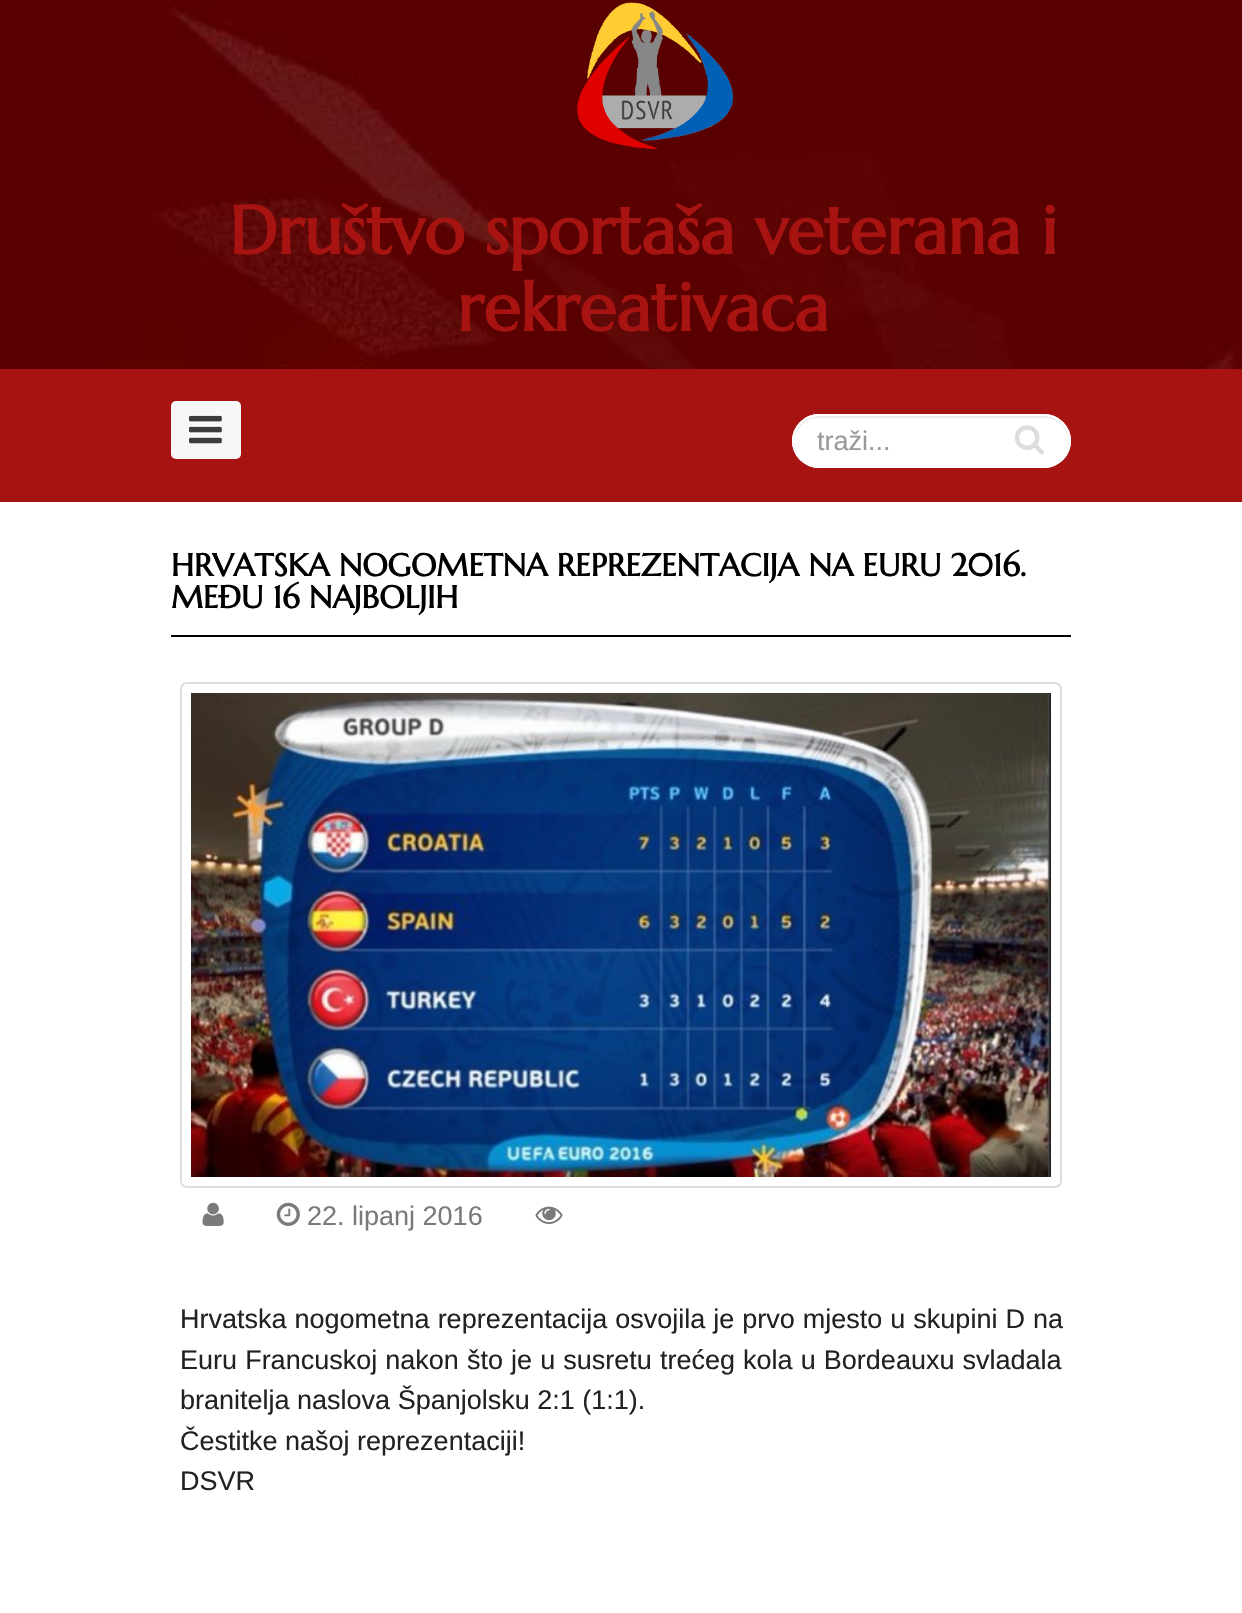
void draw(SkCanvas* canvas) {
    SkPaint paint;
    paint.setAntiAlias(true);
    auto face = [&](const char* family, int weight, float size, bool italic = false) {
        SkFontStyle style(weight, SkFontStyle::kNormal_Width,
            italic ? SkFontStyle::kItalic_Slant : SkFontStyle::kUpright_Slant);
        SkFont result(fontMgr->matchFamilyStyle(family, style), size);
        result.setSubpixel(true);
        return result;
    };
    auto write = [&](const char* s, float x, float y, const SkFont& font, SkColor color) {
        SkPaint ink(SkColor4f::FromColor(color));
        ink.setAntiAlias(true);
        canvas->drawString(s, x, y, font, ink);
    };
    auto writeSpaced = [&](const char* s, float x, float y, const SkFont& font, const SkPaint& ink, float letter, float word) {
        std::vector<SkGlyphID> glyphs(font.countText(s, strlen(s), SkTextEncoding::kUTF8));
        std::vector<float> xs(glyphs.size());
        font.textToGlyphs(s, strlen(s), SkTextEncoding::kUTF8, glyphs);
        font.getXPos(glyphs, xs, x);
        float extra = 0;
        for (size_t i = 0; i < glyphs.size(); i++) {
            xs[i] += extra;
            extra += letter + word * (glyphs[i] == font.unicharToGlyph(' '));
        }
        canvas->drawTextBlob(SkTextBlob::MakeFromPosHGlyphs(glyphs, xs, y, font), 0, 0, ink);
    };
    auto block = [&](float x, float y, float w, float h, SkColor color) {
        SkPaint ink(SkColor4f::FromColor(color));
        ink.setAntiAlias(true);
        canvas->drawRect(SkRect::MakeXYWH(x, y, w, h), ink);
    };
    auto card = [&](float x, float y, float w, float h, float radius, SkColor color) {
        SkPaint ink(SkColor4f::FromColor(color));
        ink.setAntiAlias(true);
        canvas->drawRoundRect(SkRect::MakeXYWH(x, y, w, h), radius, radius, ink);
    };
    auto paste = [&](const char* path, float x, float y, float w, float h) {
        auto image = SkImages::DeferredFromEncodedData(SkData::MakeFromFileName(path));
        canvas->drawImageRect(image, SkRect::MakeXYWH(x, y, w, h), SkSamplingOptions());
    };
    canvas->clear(SK_ColorWHITE);
    paste("pic1.png", 0, 0, 1242, 369);
    paste("pic2.png", 577, 2, 156, 147);
    auto kFont1 = face("Marcellus", 700, 67.5f);
    write("Društvo sportaša veterana i", 229, 254, kFont1, SkColorSetRGB(167, 19, 17));
    write("rekreativaca", 457, 331, kFont1, SkColorSetRGB(167, 19, 17));
    block(0, 369, 1242, 133, SkColorSetRGB(167, 19, 17));
    card(171, 401, 70, 58, 5, SkColorSetRGB(247, 247, 247));
    paste("pic3.png", 189, 415, 33, 29);
    card(792, 414, 279, 54, 27, SK_ColorWHITE);
    paint.setColor(SkColorSetRGB(236, 236, 236));
    canvas->drawPath(SkPathBuilder().moveTo(819, 418).lineTo(1044, 418).cubicTo(1058, 418, 1068, 429, 1069, 442).lineTo(1069, 441).cubicTo(1069, 427, 1058, 416, 1044, 416).lineTo(819, 416).cubicTo(805, 416, 794, 427, 794, 441).lineTo(794, 442).cubicTo(795, 429, 805, 418, 819, 418).close().detach(), paint);
    paint.setStyle(SkPaint::kStroke_Style);
    paint.setStrokeWidth(2);
    paint.setColor(SK_ColorWHITE);
    canvas->drawRoundRect(SkRect::MakeXYWH(793, 415, 277, 52), 26, 26, paint);
    auto kFont2 = face("Liberation Sans", 400, 27);
    write("traži...", 817, 450, kFont2, SkColorSetRGB(153, 153, 153));
    paste("pic4.png", 1014, 425, 30, 30);
    block(171, 635, 900, 2, SK_ColorBLACK);
    auto kFont3 = face("Marcellus", 700, 31.5f);
    write("HRVATSKA NOGOMETNA REPREZENTACIJA NA EURU 2016.", 171, 576, kFont3, SK_ColorBLACK);
    write("MEĐU 16 NAJBOLJIH", 171, 608, kFont3, SK_ColorBLACK);
    paint.setColor(SkColorSetRGB(221, 221, 221));
    canvas->drawRoundRect(SkRect::MakeXYWH(181, 683, 880, 504), 6, 6, paint);
    block(1050, 693, 1, 484, SK_ColorBLACK);
    paste("pic5.png", 191, 693, 860, 484);
    paste("pic6.png", 202, 1202, 22, 24);
    paste("pic7.png", 276, 1202, 24, 24);
    write("22. lipanj 2016", 307, 1225, kFont2, SkColorSetRGB(122, 122, 122));
    paste("pic8.png", 535, 1206, 28, 18);
    paint.setStyle(SkPaint::kFill_Style);
    paint.setColor(SkColorSetRGB(34, 34, 34));
    writeSpaced("Hrvatska nogometna reprezentacija osvojila je prvo mjesto u skupini D na", 180, 1328, kFont2, paint, 0, 0.5f);
    writeSpaced("Euru Francuskoj nakon što je u susretu trećeg kola u Bordeauxu svladala", 180, 1369, kFont2, paint, 0, 0.6f);
    write("branitelja naslova Španjolsku 2:1 (1:1).", 180, 1409, kFont2, SkColorSetRGB(34, 34, 34));
    write("Čestitke našoj reprezentaciji!", 180, 1450, kFont2, SkColorSetRGB(34, 34, 34));
    write("DSVR", 180, 1490, kFont2, SkColorSetRGB(34, 34, 34));
}
